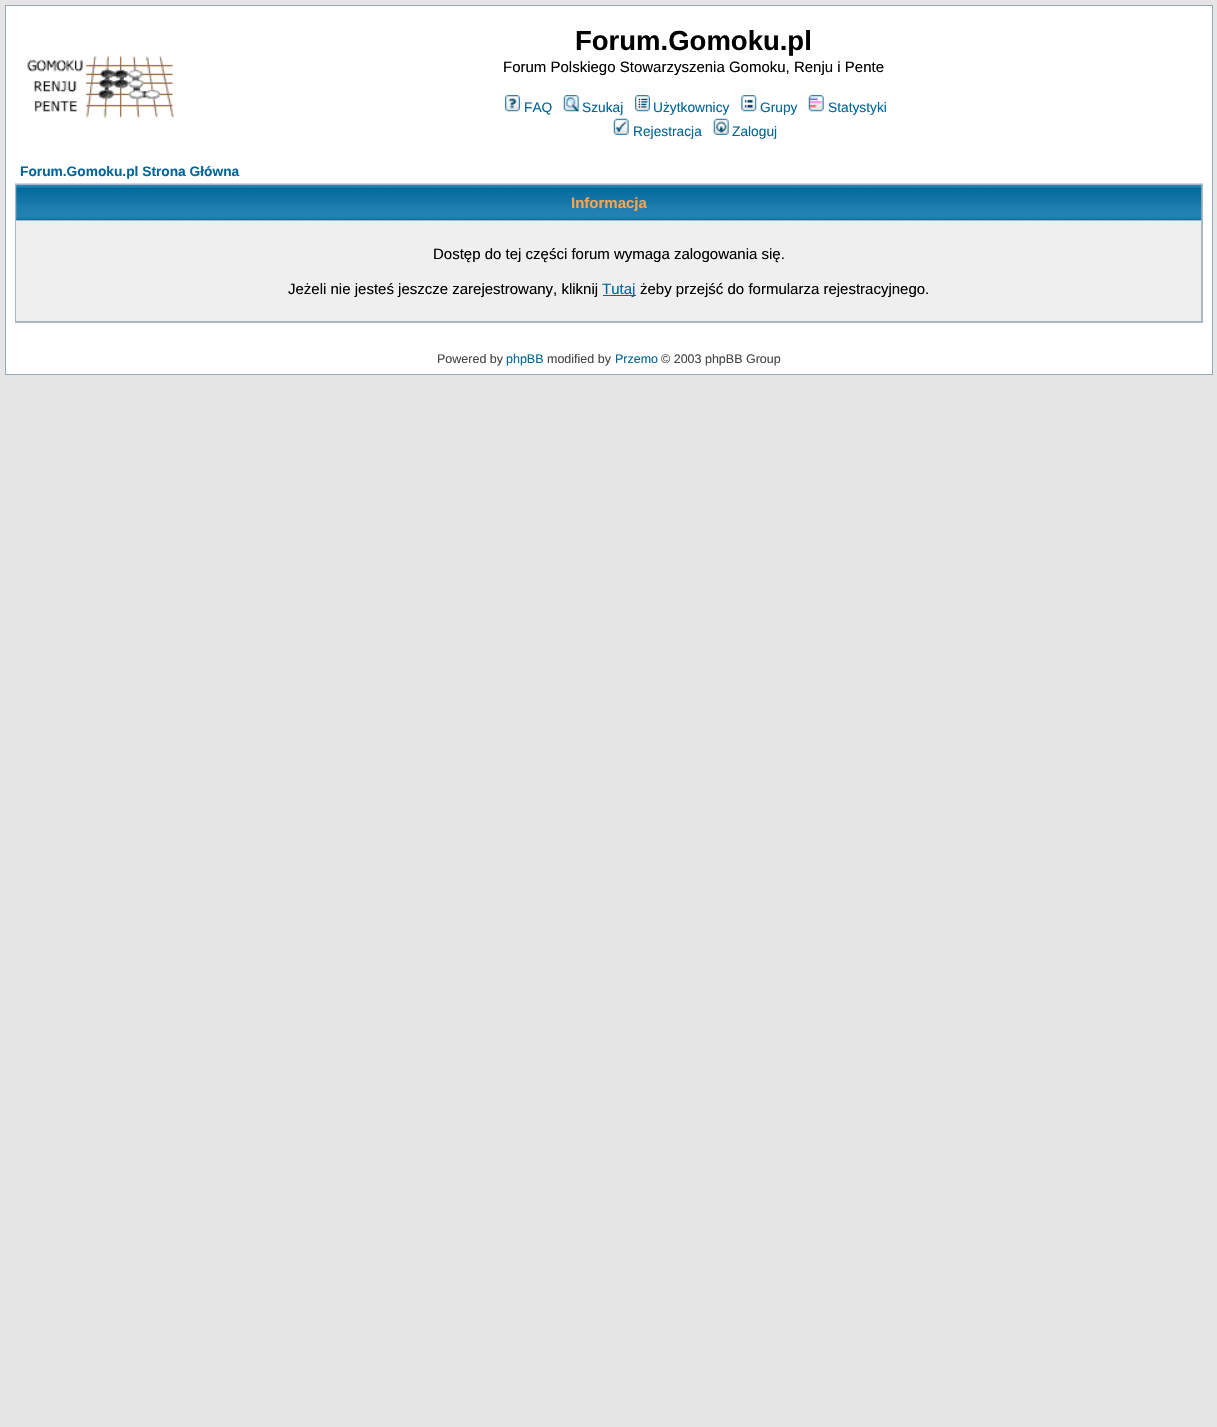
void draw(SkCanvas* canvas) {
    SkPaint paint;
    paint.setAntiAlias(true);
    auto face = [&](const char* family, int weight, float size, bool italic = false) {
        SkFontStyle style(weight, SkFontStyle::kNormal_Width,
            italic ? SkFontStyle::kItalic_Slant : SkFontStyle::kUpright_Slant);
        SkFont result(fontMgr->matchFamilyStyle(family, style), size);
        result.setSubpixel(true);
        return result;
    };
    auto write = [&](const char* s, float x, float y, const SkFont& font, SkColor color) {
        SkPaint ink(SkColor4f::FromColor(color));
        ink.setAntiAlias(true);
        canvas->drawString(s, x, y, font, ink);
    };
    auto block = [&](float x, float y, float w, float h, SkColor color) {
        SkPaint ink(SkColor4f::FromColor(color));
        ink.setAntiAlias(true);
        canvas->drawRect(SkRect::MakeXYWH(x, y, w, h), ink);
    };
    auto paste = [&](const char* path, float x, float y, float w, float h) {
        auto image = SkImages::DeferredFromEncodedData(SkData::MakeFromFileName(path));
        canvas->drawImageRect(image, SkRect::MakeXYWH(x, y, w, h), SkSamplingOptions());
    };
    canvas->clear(SkColorSetRGB(229, 229, 229));
    paint.setColor(SK_ColorWHITE);
    canvas->drawRect(SkRect::MakeXYWH(5.5f, 5.5f, 1207, 369), paint);
    paint.setStyle(SkPaint::kStroke_Style);
    paint.setStrokeWidth(1);
    paint.setColor(SkColorSetRGB(152, 170, 177));
    canvas->drawRect(SkRect::MakeXYWH(5.5f, 5.5f, 1207, 369), paint);
    paste("pic1.png", 27, 56, 147, 62);
    auto kFont1 = face("Liberation Sans", 700, 27.5f);
    write("Forum.Gomoku.pl", 575, 50, kFont1, SK_ColorBLACK);
    auto kFont2 = face("Liberation Sans", 400, 15);
    write("Forum Polskiego Stowarzyszenia Gomoku, Renju i Pente", 503, 72, kFont2, SK_ColorBLACK);
    paste("pic2.png", 505, 95, 15, 17);
    auto kFont3 = face("Liberation Sans", 400, 13.75f);
    write("FAQ", 524, 112, kFont3, SkColorSetRGB(0, 102, 153));
    paste("pic3.png", 563, 95, 16, 17);
    write("Szukaj", 582, 112, kFont3, SkColorSetRGB(0, 102, 153));
    paste("pic4.png", 635, 95, 15, 17);
    write("Użytkownicy", 653, 112, kFont3, SkColorSetRGB(0, 102, 153));
    paste("pic5.png", 741, 95, 16, 17);
    write("Grupy", 760, 112, kFont3, SkColorSetRGB(0, 102, 153));
    paste("pic6.png", 808, 95, 16, 17);
    write("Statystyki", 828, 112, kFont3, SkColorSetRGB(0, 102, 153));
    paste("pic7.png", 613, 118, 16, 17);
    write("Rejestracja", 633, 136, kFont3, SkColorSetRGB(0, 102, 153));
    paste("pic8.png", 713, 118, 16, 17);
    write("Zaloguj", 732, 136, kFont3, SkColorSetRGB(0, 102, 153));
    auto kFont4 = face("Liberation Sans", 700, 13.75f);
    write("Forum.Gomoku.pl Strona Główna", 20, 176, kFont4, SkColorSetRGB(0, 102, 153));
    block(15, 184, 1188, 139, SkColorSetRGB(169, 184, 194));
    block(15, 183, 1188, 1, SkColorSetRGB(209, 215, 220));
    paste("pic9.png", 16, 185, 1186, 35);
    auto kFont5 = face("Liberation Sans", 700, 15);
    write("Informacja", 571, 208, kFont5, SkColorSetRGB(255, 163, 79));
    block(16, 221, 1185, 100, SkColorSetRGB(239, 239, 239));
    write("Dostęp do tej części forum wymaga zalogowania się.", 433, 259, kFont2, SK_ColorBLACK);
    write("Jeżeli nie jesteś jeszcze zarejestrowany, kliknij", 288, 294, kFont2, SK_ColorBLACK);
    block(603, 295, 33, 1, SkColorSetRGB(0, 102, 153));
    write("Tutaj", 602, 294, kFont2, SkColorSetRGB(0, 102, 153));
    write("żeby przejść do formularza rejestracyjnego.", 640, 294, kFont2, SK_ColorBLACK);
    auto kFont6 = face("Liberation Sans", 400, 12.5f);
    write("Powered by", 437, 363, kFont6, SkColorSetRGB(68, 68, 68));
    write("phpBB", 506, 363, kFont6, SkColorSetRGB(0, 102, 153));
    write("modified by", 547, 363, kFont6, SkColorSetRGB(68, 68, 68));
    write("Przemo", 615, 363, kFont6, SkColorSetRGB(0, 102, 153));
    write("© 2003 phpBB Group", 661, 363, kFont6, SkColorSetRGB(68, 68, 68));
}
